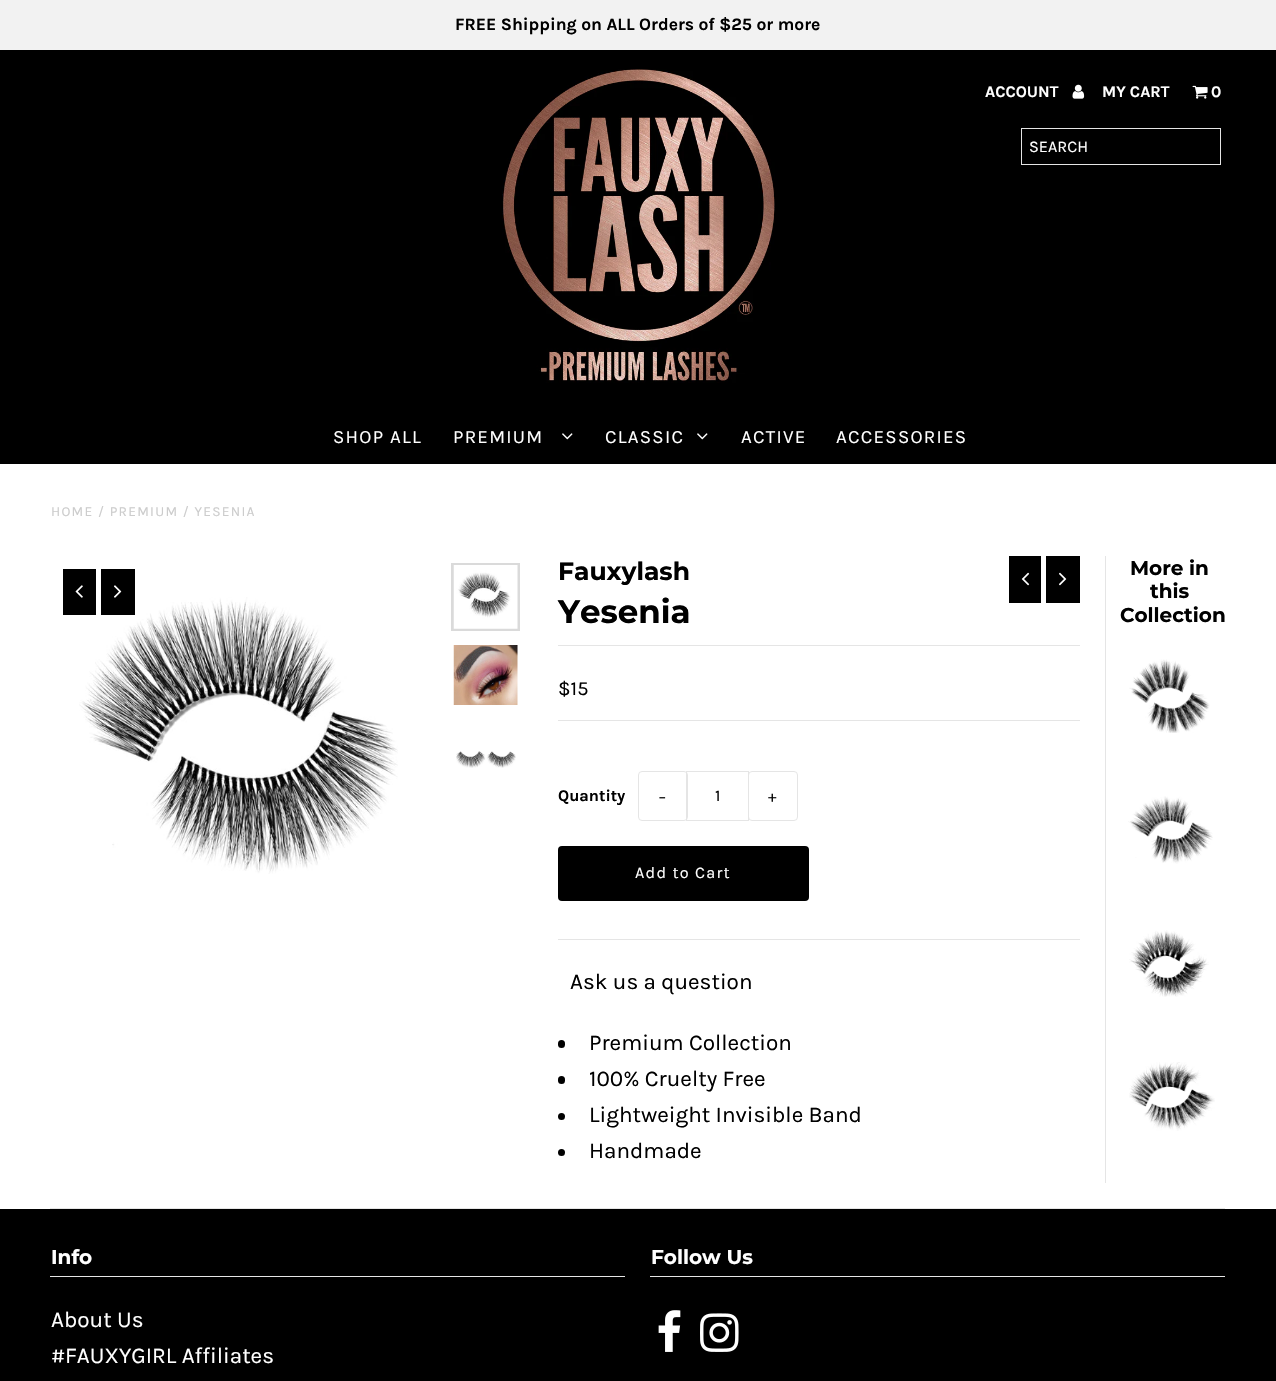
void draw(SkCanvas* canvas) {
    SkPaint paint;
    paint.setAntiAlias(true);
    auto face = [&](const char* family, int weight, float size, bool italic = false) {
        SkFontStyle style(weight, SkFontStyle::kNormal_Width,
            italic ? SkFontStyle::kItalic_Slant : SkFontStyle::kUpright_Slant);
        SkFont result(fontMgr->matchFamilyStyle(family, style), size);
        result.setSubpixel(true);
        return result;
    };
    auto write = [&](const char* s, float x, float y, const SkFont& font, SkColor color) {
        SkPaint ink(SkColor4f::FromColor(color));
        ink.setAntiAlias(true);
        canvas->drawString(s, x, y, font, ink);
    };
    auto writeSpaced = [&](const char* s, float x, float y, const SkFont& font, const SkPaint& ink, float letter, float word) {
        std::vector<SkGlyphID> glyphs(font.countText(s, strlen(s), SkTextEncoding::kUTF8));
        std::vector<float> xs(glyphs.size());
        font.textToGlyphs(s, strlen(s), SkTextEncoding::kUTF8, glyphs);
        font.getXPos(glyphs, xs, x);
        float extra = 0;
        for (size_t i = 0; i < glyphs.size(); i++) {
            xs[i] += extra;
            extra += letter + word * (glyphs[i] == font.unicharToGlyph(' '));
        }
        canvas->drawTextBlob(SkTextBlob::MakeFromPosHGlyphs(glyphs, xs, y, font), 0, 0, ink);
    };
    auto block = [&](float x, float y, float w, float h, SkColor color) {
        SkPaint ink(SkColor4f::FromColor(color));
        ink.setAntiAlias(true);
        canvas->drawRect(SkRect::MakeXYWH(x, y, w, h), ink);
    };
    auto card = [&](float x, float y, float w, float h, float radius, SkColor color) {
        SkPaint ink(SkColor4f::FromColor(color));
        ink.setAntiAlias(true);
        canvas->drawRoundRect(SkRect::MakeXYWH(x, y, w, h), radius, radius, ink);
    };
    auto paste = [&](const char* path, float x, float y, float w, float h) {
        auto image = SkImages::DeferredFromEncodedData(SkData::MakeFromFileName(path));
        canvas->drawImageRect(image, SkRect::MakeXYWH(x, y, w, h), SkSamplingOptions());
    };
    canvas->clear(SK_ColorWHITE);
    block(0, 0, 1276, 50, SkColorSetRGB(242, 242, 242));
    auto kFont1 = face("Karla", 700, 17.5f);
    write("FREE Shipping on ALL Orders of $25 or more", 455, 30, kFont1, SK_ColorBLACK);
    block(0, 50, 1276, 414, SK_ColorBLACK);
    paste("pic1.png", 502, 69, 273, 314);
    auto kFont2 = face("Karla", 700, 16.25f);
    write("ACCOUNT", 985, 97, kFont2, SK_ColorWHITE);
    paste("pic2.png", 1072, 84, 13, 15);
    write("MY CART", 1102, 97, kFont2, SK_ColorWHITE);
    paste("pic3.png", 1192, 85, 16, 14);
    write("0", 1211, 97, kFont2, SK_ColorWHITE);
    paint.setStyle(SkPaint::kStroke_Style);
    paint.setStrokeWidth(1);
    paint.setColor(SkColorSetRGB(229, 229, 229));
    canvas->drawRect(SkRect::MakeXYWH(1021.5f, 128.5f, 199, 36), paint);
    auto kFont3 = face("Karla", 400, 16.25f);
    write("SEARCH", 1029, 152, kFont3, SK_ColorWHITE);
    auto kFont4 = face("Karla", 400, 18.75f);
    paint.setStyle(SkPaint::kFill_Style);
    paint.setColor(SK_ColorWHITE);
    writeSpaced("SHOP ALL", 333, 443, kFont4, paint, 1.25f, 0);
    writeSpaced("PREMIUM", 453, 443, kFont4, paint, 1.25f, 0);
    paste("pic4.png", 562, 433, 11, 7);
    writeSpaced("CLASSIC", 605, 443, kFont4, paint, 1.25f, 0);
    paste("pic4.png", 697, 433, 11, 7);
    writeSpaced("ACTIVE", 741, 443, kFont4, paint, 1.25f, 0);
    writeSpaced("ACCESSORIES", 836, 443, kFont4, paint, 1.25f, 0);
    auto kFont5 = face("Karla", 400, 13.75f);
    paint.setColor(SkColorSetRGB(204, 204, 204));
    writeSpaced("HOME / PREMIUM / YESENIA", 51, 516, kFont5, paint, 1.25f, 0);
    paste("pic10.png", 79, 597, 319, 277);
    block(63, 569, 33, 46, SK_ColorBLACK);
    paste("pic5.png", 75, 585, 8, 13);
    block(101, 569, 34, 46, SK_ColorBLACK);
    paste("pic6.png", 114, 585, 8, 13);
    paint.setStyle(SkPaint::kStroke_Style);
    paint.setStrokeWidth(3);
    paint.setColor(SkColorSetRGB(218, 218, 218));
    canvas->drawRect(SkRect::MakeXYWH(452.5f, 564.5f, 66, 65), paint);
    paste("pic7.png", 453, 565, 65, 64);
    paste("pic8.png", 453, 645, 65, 60);
    paste("pic9.png", 456, 751, 60, 17);
    block(1105, 556, 1, 627, SkColorSetRGB(229, 229, 229));
    auto kFont6 = face("Montserrat", 700, 25);
    write("Fauxylash", 558, 580, kFont6, SK_ColorBLACK);
    block(1009, 556, 32, 47, SK_ColorBLACK);
    paste("pic11.png", 1021, 572, 9, 14);
    block(1046, 556, 34, 47, SK_ColorBLACK);
    paste("pic12.png", 1059, 572, 8, 14);
    auto kFont7 = face("Montserrat", 700, 32.5f);
    write("Yesenia", 558, 623, kFont7, SK_ColorBLACK);
    block(558, 645, 522, 1, SkColorSetRGB(229, 229, 229));
    block(558, 939, 522, 1, SkColorSetRGB(229, 229, 229));
    block(558, 720, 522, 1, SkColorSetRGB(229, 229, 229));
    auto kFont8 = face("Karla", 400, 20);
    write("$15", 558, 695, kFont8, SK_ColorBLACK);
    write("Quantity", 558, 801, kFont2, SK_ColorBLACK);
    paint.setStrokeWidth(1);
    paint.setColor(SkColorSetRGB(229, 229, 229));
    canvas->drawRoundRect(SkRect::MakeXYWH(638.5f, 771.5f, 49, 49), 3.5f, 3.5f, paint);
    paint.setStyle(SkPaint::kFill_Style);
    paint.setColor(SK_ColorBLACK);
    writeSpaced("−", 658, 802, kFont3, paint, 1.25f, 0);
    paint.setStyle(SkPaint::kStroke_Style);
    paint.setColor(SkColorSetRGB(229, 229, 229));
    canvas->drawRect(SkRect::MakeXYWH(686.5f, 771.5f, 62, 49), paint);
    write("1", 715, 801, kFont3, SK_ColorBLACK);
    canvas->drawRoundRect(SkRect::MakeXYWH(748.5f, 771.5f, 49, 49), 3.5f, 3.5f, paint);
    paint.setStyle(SkPaint::kFill_Style);
    paint.setColor(SK_ColorBLACK);
    writeSpaced("+", 768, 802, kFont3, paint, 1.25f, 0);
    card(558, 846, 251, 55, 4, SK_ColorBLACK);
    paint.setColor(SK_ColorWHITE);
    writeSpaced("Add to Cart", 635, 878, kFont3, paint, 1.25f, 0);
    auto kFont9 = face("Karla", 400, 22.5f);
    write("Ask us a question", 570, 989, kFont9, SK_ColorBLACK);
    card(558, 1040, 7, 8, 3.5f, SK_ColorBLACK);
    write("Premium Collection", 589, 1050, kFont9, SK_ColorBLACK);
    card(558, 1076, 7, 8, 3.5f, SK_ColorBLACK);
    write("100% Cruelty Free", 589, 1086, kFont9, SK_ColorBLACK);
    paint.setColor(SK_ColorBLACK);
    canvas->drawCircle(561.5f, 1116.5f, 3.5f, paint);
    write("Lightweight Invisible Band", 589, 1122, kFont9, SK_ColorBLACK);
    canvas->drawCircle(561.5f, 1152.5f, 3.5f, paint);
    write("Handmade", 589, 1158, kFont9, SK_ColorBLACK);
    auto kFont10 = face("Montserrat", 700, 20);
    write("More in", 1130, 575, kFont10, SK_ColorBLACK);
    write("this", 1150, 598, kFont10, SK_ColorBLACK);
    write("Collection", 1120, 622, kFont10, SK_ColorBLACK);
    paste("pic13.png", 1129, 659, 81, 74);
    paste("pic14.png", 1128, 796, 85, 68);
    paste("pic15.png", 1129, 930, 80, 67);
    paste("pic16.png", 1129, 1062, 86, 69);
    block(50, 1208, 1175, 1, SkColorSetRGB(229, 229, 229));
    block(0, 1209, 1276, 172, SK_ColorBLACK);
    block(50, 1276, 575, 1, SkColorSetRGB(229, 229, 229));
    write("Info", 51, 1264, kFont10, SK_ColorWHITE);
    write("About Us", 51, 1327, kFont9, SK_ColorWHITE);
    write("#FAUXYGIRL Affiliates", 51, 1363, kFont9, SK_ColorWHITE);
    block(650, 1276, 575, 1, SkColorSetRGB(229, 229, 229));
    write("Follow Us", 651, 1264, kFont10, SK_ColorWHITE);
    paste("pic17.png", 658, 1310, 23, 42);
    paste("pic18.png", 700, 1313, 39, 39);
}
